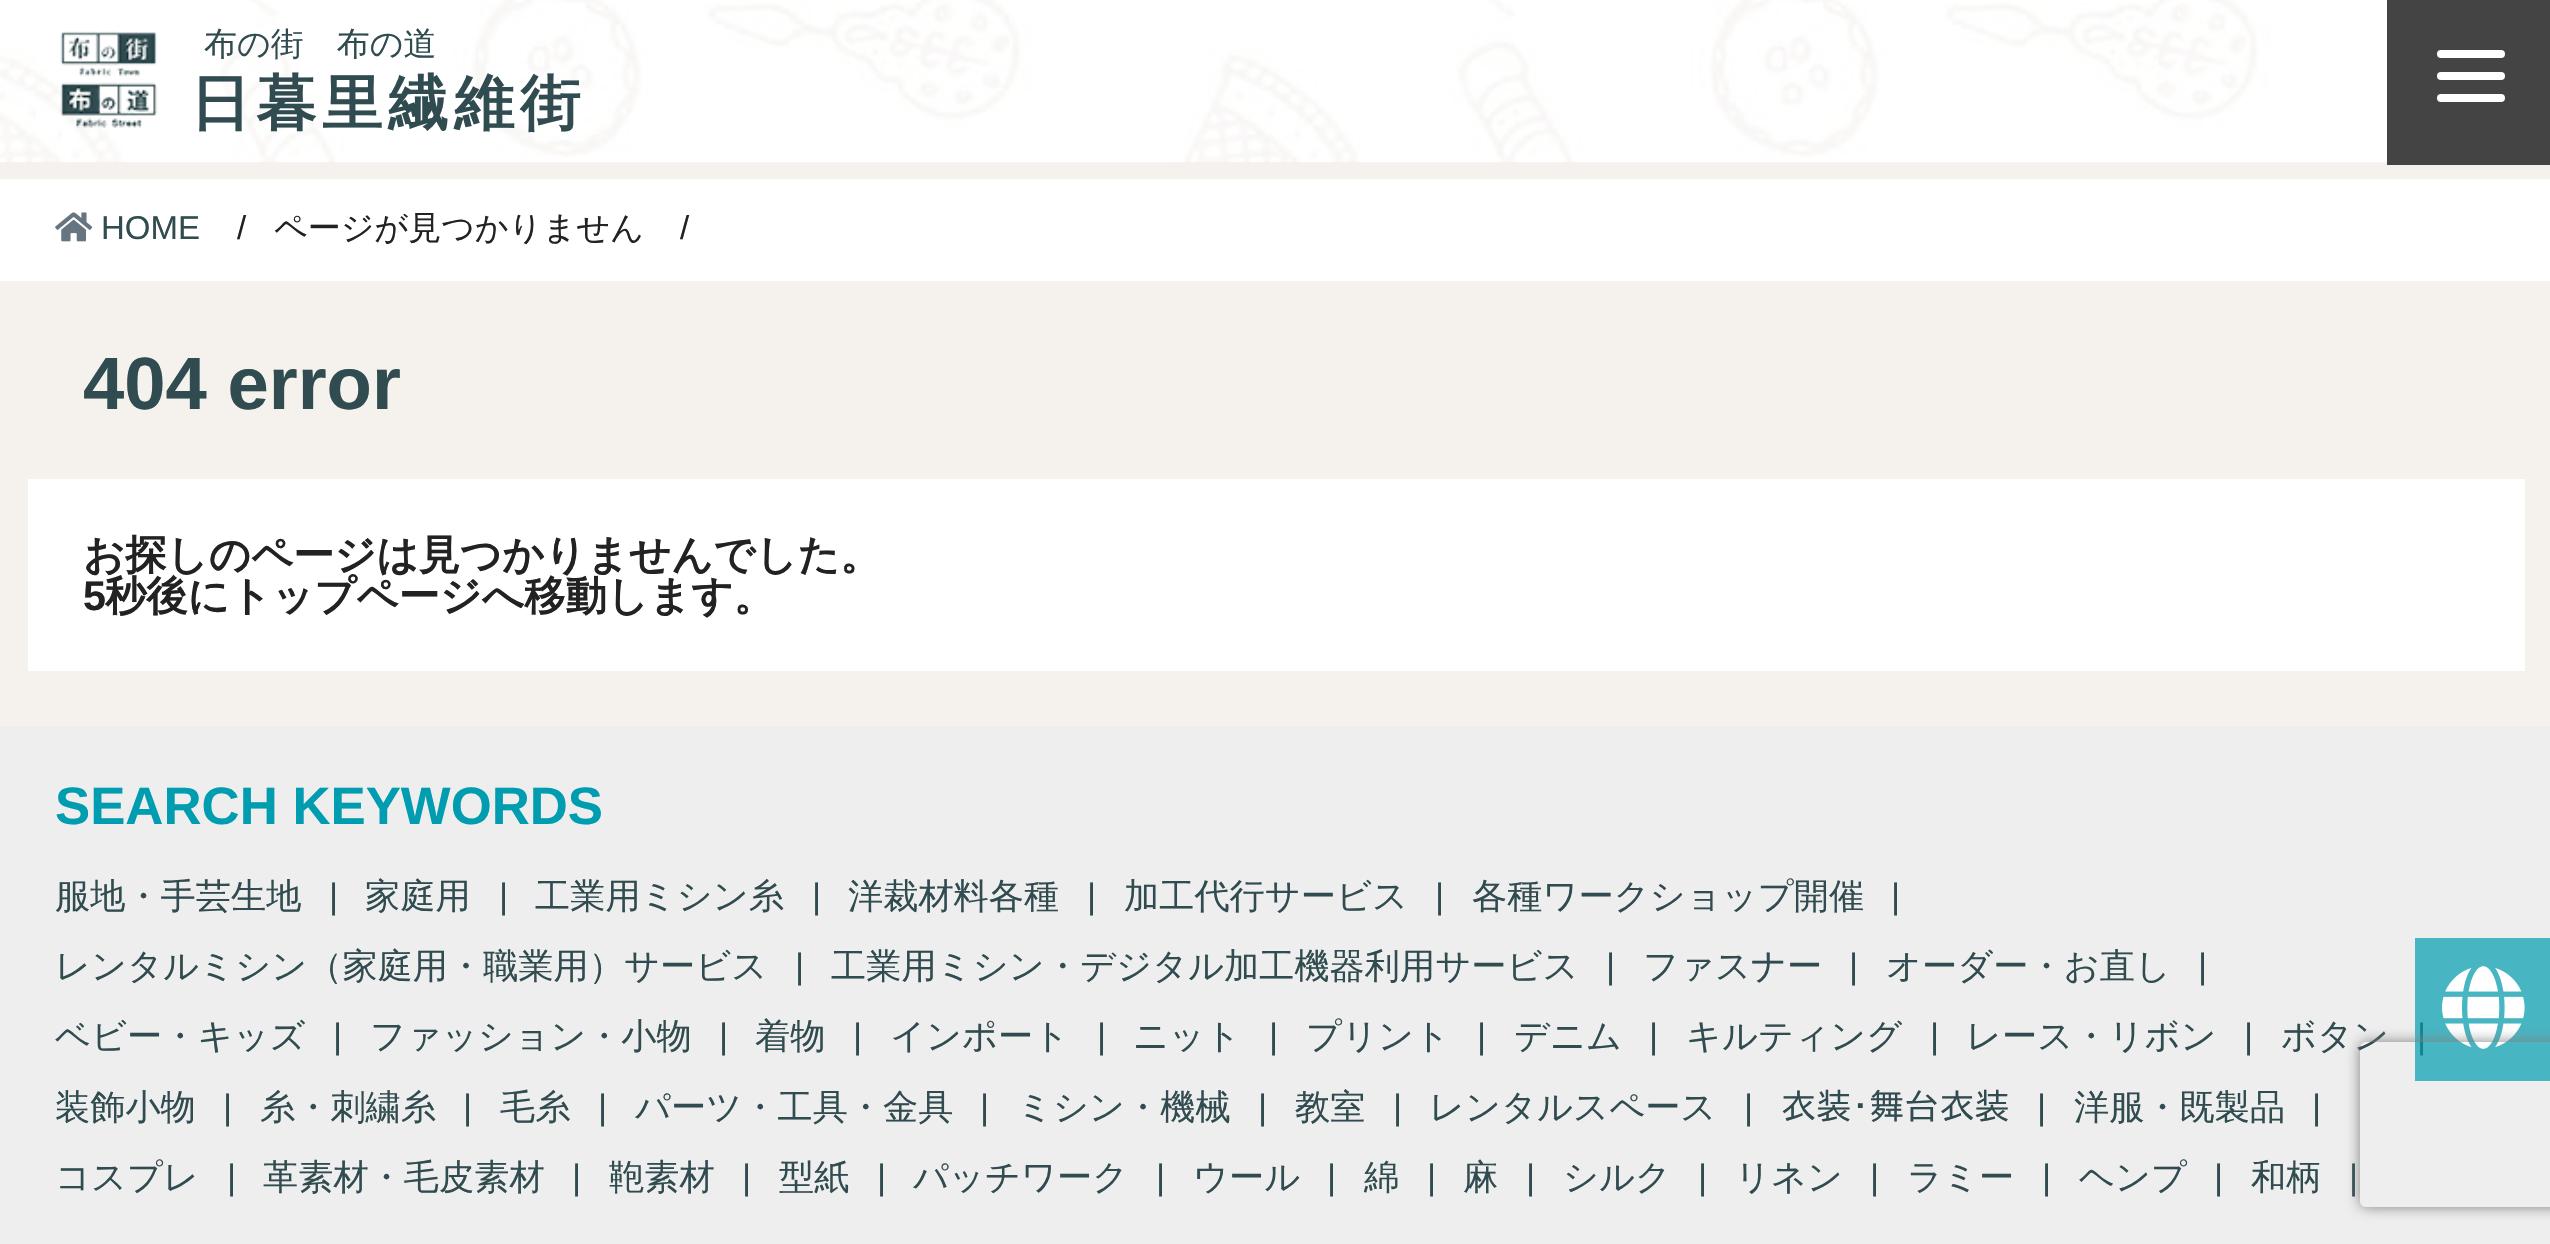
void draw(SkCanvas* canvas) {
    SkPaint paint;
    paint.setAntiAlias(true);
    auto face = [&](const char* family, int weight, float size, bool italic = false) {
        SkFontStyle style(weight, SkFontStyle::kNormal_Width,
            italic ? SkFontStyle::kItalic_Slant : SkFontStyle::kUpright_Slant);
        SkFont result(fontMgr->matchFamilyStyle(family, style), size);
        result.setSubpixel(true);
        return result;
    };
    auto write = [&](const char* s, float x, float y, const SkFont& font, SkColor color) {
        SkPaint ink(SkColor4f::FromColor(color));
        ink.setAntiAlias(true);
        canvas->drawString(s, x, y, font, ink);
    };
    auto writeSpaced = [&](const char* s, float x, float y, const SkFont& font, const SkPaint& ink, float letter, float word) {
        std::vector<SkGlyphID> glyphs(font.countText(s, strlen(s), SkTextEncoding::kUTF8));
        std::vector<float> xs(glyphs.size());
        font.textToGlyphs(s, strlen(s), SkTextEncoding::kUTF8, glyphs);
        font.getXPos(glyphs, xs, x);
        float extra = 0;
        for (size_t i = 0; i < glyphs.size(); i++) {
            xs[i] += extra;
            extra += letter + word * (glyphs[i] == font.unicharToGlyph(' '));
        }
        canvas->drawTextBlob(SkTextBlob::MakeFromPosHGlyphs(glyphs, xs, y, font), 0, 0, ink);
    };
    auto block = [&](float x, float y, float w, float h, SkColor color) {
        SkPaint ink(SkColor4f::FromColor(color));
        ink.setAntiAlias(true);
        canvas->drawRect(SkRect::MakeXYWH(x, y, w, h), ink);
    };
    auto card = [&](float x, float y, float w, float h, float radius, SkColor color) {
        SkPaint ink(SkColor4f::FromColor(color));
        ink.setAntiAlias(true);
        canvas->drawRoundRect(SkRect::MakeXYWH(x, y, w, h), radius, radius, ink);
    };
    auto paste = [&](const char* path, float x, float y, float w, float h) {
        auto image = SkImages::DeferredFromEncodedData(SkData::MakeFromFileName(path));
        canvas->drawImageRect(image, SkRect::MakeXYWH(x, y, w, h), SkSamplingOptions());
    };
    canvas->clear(SkColorSetRGB(245, 241, 236));
    paste("pic1.png", 0, 0, 2387, 163);
    paste("pic2.png", 60, 31, 98, 97);
    auto kFont1 = face("WenQuanYi Zen Hei", 500, 33);
    write("布の街　布の道", 204, 55, kFont1, SkColorSetRGB(49, 76, 80));
    auto kFont2 = face("WenQuanYi Zen Hei", 700, 60.5f);
    paint.setColor(SkColorSetRGB(49, 76, 80));
    writeSpaced("日暮里繊維街", 190, 124, kFont2, paint, 5.5f, 0);
    block(2387, 0, 163, 165, SkColorSetRGB(68, 68, 68));
    card(2437, 50, 68, 8, 4, SK_ColorWHITE);
    card(2437, 72, 68, 8, 4, SK_ColorWHITE);
    card(2437, 94, 68, 8, 4, SK_ColorWHITE);
    block(0, 179, 2550, 102, SK_ColorWHITE);
    paste("pic3.png", 55, 212, 38, 30);
    auto kFont3 = face("Liberation Sans", 400, 33);
    write("HOME", 101, 239, kFont3, SkColorSetRGB(49, 76, 80));
    write("/", 237, 239, kFont3, SkColorSetRGB(34, 34, 34));
    write("ページが見つかりません", 274, 239, kFont1, SkColorSetRGB(34, 34, 34));
    write("/", 680, 239, kFont3, SkColorSetRGB(34, 34, 34));
    auto kFont4 = face("Liberation Sans", 700, 74.25f);
    write("404 error", 83, 409, kFont4, SkColorSetRGB(49, 76, 80));
    block(28, 479, 2497, 192, SK_ColorWHITE);
    auto kFont5 = face("WenQuanYi Zen Hei", 700, 41.25f);
    write("お探しのページは見つかりませんでした。", 83, 569, kFont5, SkColorSetRGB(34, 34, 34));
    auto kFont6 = face("Liberation Sans", 700, 41.25f);
    write("5", 83, 610, kFont6, SkColorSetRGB(34, 34, 34));
    write("秒後にトップページへ移動します。", 105, 610, kFont5, SkColorSetRGB(34, 34, 34));
    block(0, 726, 2550, 518, SkColorSetRGB(238, 238, 238));
    block(2415, 938, 135, 143, SkColorSetRGB(71, 181, 194));
    auto kFont7 = face("Liberation Sans", 700, 52.75f);
    write("SEARCH KEYWORDS", 55, 824, kFont7, SkColorSetRGB(0, 156, 175));
    auto kFont8 = face("WenQuanYi Zen Hei", 500, 35.2f);
    write("服地・手芸生地", 55, 908, kFont8, SkColorSetRGB(49, 76, 80));
    auto kFont9 = face("Liberation Sans", 400, 35.2f);
    write("|", 329, 908, kFont9, SkColorSetRGB(49, 76, 80));
    write("家庭用", 365, 908, kFont8, SkColorSetRGB(49, 76, 80));
    write("|", 499, 908, kFont9, SkColorSetRGB(49, 76, 80));
    write("工業用ミシン糸", 535, 908, kFont8, SkColorSetRGB(49, 76, 80));
    write("|", 812, 908, kFont9, SkColorSetRGB(49, 76, 80));
    write("洋裁材料各種", 848, 908, kFont8, SkColorSetRGB(49, 76, 80));
    write("|", 1087, 908, kFont9, SkColorSetRGB(49, 76, 80));
    write("加工代行サービス", 1124, 908, kFont8, SkColorSetRGB(49, 76, 80));
    write("|", 1435, 908, kFont9, SkColorSetRGB(49, 76, 80));
    write("各種ワークショップ開催", 1472, 908, kFont8, SkColorSetRGB(49, 76, 80));
    write("|", 1891, 908, kFont9, SkColorSetRGB(49, 76, 80));
    write("レンタルミシン（家庭用・職業用）サービス", 55, 978, kFont8, SkColorSetRGB(49, 76, 80));
    write("|", 795, 978, kFont9, SkColorSetRGB(49, 76, 80));
    write("工業用ミシン・デジタル加工機器利用サービス", 831, 978, kFont8, SkColorSetRGB(49, 76, 80));
    write("|", 1606, 978, kFont9, SkColorSetRGB(49, 76, 80));
    write("ファスナー", 1643, 978, kFont8, SkColorSetRGB(49, 76, 80));
    write("|", 1849, 978, kFont9, SkColorSetRGB(49, 76, 80));
    write("オーダー・お直し", 1886, 978, kFont8, SkColorSetRGB(49, 76, 80));
    write("|", 2198, 978, kFont9, SkColorSetRGB(49, 76, 80));
    write("ベビー・キッズ", 55, 1048, kFont8, SkColorSetRGB(49, 76, 80));
    write("|", 333, 1048, kFont9, SkColorSetRGB(49, 76, 80));
    write("ファッション・小物", 370, 1048, kFont8, SkColorSetRGB(49, 76, 80));
    write("|", 719, 1048, kFont9, SkColorSetRGB(49, 76, 80));
    write("着物", 755, 1048, kFont8, SkColorSetRGB(49, 76, 80));
    write("|", 853, 1048, kFont9, SkColorSetRGB(49, 76, 80));
    write("インポート", 890, 1048, kFont8, SkColorSetRGB(49, 76, 80));
    write("|", 1097, 1048, kFont9, SkColorSetRGB(49, 76, 80));
    write("ニット", 1133, 1048, kFont8, SkColorSetRGB(49, 76, 80));
    write("|", 1269, 1048, kFont9, SkColorSetRGB(49, 76, 80));
    write("プリント", 1306, 1048, kFont8, SkColorSetRGB(49, 76, 80));
    write("|", 1477, 1048, kFont9, SkColorSetRGB(49, 76, 80));
    write("デニム", 1514, 1048, kFont8, SkColorSetRGB(49, 76, 80));
    write("|", 1649, 1048, kFont9, SkColorSetRGB(49, 76, 80));
    write("キルティング", 1686, 1048, kFont8, SkColorSetRGB(49, 76, 80));
    write("|", 1930, 1048, kFont9, SkColorSetRGB(49, 76, 80));
    write("レース・リボン", 1966, 1048, kFont8, SkColorSetRGB(49, 76, 80));
    write("|", 2244, 1048, kFont9, SkColorSetRGB(49, 76, 80));
    write("ボタン", 2281, 1048, kFont8, SkColorSetRGB(49, 76, 80));
    write("|", 2417, 1048, kFont9, SkColorSetRGB(15, 132, 147));
    write("装飾小物", 55, 1119, kFont8, SkColorSetRGB(49, 76, 80));
    write("|", 223, 1119, kFont9, SkColorSetRGB(49, 76, 80));
    write("糸・刺繍糸", 260, 1119, kFont8, SkColorSetRGB(49, 76, 80));
    write("|", 463, 1119, kFont9, SkColorSetRGB(49, 76, 80));
    write("毛糸", 500, 1119, kFont8, SkColorSetRGB(49, 76, 80));
    write("|", 598, 1119, kFont9, SkColorSetRGB(49, 76, 80));
    write("パーツ・工具・金具", 635, 1119, kFont8, SkColorSetRGB(49, 76, 80));
    write("|", 980, 1119, kFont9, SkColorSetRGB(49, 76, 80));
    write("ミシン・機械", 1017, 1119, kFont8, SkColorSetRGB(49, 76, 80));
    write("|", 1258, 1119, kFont9, SkColorSetRGB(49, 76, 80));
    write("教室", 1295, 1119, kFont8, SkColorSetRGB(49, 76, 80));
    write("|", 1393, 1119, kFont9, SkColorSetRGB(49, 76, 80));
    write("レンタルスペース", 1429, 1119, kFont8, SkColorSetRGB(49, 76, 80));
    write("|", 1744, 1119, kFont9, SkColorSetRGB(49, 76, 80));
    auto kFont10 = face("IPAGothic", 400, 35.2f);
    write("衣装･舞台衣装", 1781, 1119, kFont10, SkColorSetRGB(49, 76, 80));
    write("|", 2037, 1119, kFont9, SkColorSetRGB(49, 76, 80));
    write("洋服・既製品", 2074, 1119, kFont8, SkColorSetRGB(49, 76, 80));
    write("|", 2312, 1119, kFont9, SkColorSetRGB(49, 76, 80));
    write("コスプレ", 55, 1189, kFont8, SkColorSetRGB(49, 76, 80));
    write("|", 227, 1189, kFont9, SkColorSetRGB(49, 76, 80));
    write("革素材・毛皮素材", 263, 1189, kFont8, SkColorSetRGB(49, 76, 80));
    write("|", 572, 1189, kFont9, SkColorSetRGB(49, 76, 80));
    write("鞄素材", 609, 1189, kFont8, SkColorSetRGB(49, 76, 80));
    write("|", 742, 1189, kFont9, SkColorSetRGB(49, 76, 80));
    write("型紙", 779, 1189, kFont8, SkColorSetRGB(49, 76, 80));
    write("|", 877, 1189, kFont9, SkColorSetRGB(49, 76, 80));
    write("パッチワーク", 913, 1189, kFont8, SkColorSetRGB(49, 76, 80));
    write("|", 1156, 1189, kFont9, SkColorSetRGB(49, 76, 80));
    write("ウール", 1193, 1189, kFont8, SkColorSetRGB(49, 76, 80));
    write("|", 1327, 1189, kFont9, SkColorSetRGB(49, 76, 80));
    write("綿", 1364, 1189, kFont8, SkColorSetRGB(49, 76, 80));
    write("|", 1427, 1189, kFont9, SkColorSetRGB(49, 76, 80));
    write("麻", 1463, 1189, kFont8, SkColorSetRGB(49, 76, 80));
    write("|", 1526, 1189, kFont9, SkColorSetRGB(49, 76, 80));
    write("シルク", 1563, 1189, kFont8, SkColorSetRGB(49, 76, 80));
    write("|", 1698, 1189, kFont9, SkColorSetRGB(49, 76, 80));
    write("リネン", 1735, 1189, kFont8, SkColorSetRGB(49, 76, 80));
    write("|", 1870, 1189, kFont9, SkColorSetRGB(49, 76, 80));
    write("ラミー", 1907, 1189, kFont8, SkColorSetRGB(49, 76, 80));
    write("|", 2042, 1189, kFont9, SkColorSetRGB(49, 76, 80));
    write("ヘンプ", 2079, 1189, kFont8, SkColorSetRGB(49, 76, 80));
    write("|", 2214, 1189, kFont9, SkColorSetRGB(49, 76, 80));
    write("和柄", 2251, 1189, kFont8, SkColorSetRGB(49, 76, 80));
    write("|", 2349, 1189, kFont9, SkColorSetRGB(49, 76, 80));
    paste("pic4.png", 2442, 966, 83, 83);
    canvas->save();
    canvas->clipPath(SkPathBuilder(SkPathFillType::kEvenOdd).moveTo(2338, 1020).lineTo(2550, 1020).lineTo(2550, 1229).lineTo(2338, 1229).close().moveTo(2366, 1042).lineTo(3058, 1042).cubicTo(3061.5f, 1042, 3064, 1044.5f, 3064, 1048).lineTo(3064, 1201).cubicTo(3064, 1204.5f, 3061.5f, 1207, 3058, 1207).lineTo(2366, 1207).cubicTo(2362.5f, 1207, 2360, 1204.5f, 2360, 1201).lineTo(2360, 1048).cubicTo(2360, 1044.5f, 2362.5f, 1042, 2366, 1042).close().detach(), true);
    paint.setColor(SkColorSetRGB(128, 128, 128));
    paint.setMaskFilter(SkMaskFilter::MakeBlur(kNormal_SkBlurStyle, 7));
    canvas->drawRoundRect(SkRect::MakeXYWH(2360, 1042, 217, 165), 6, 6, paint);
    paint.setMaskFilter(nullptr);
    canvas->restore();
}
